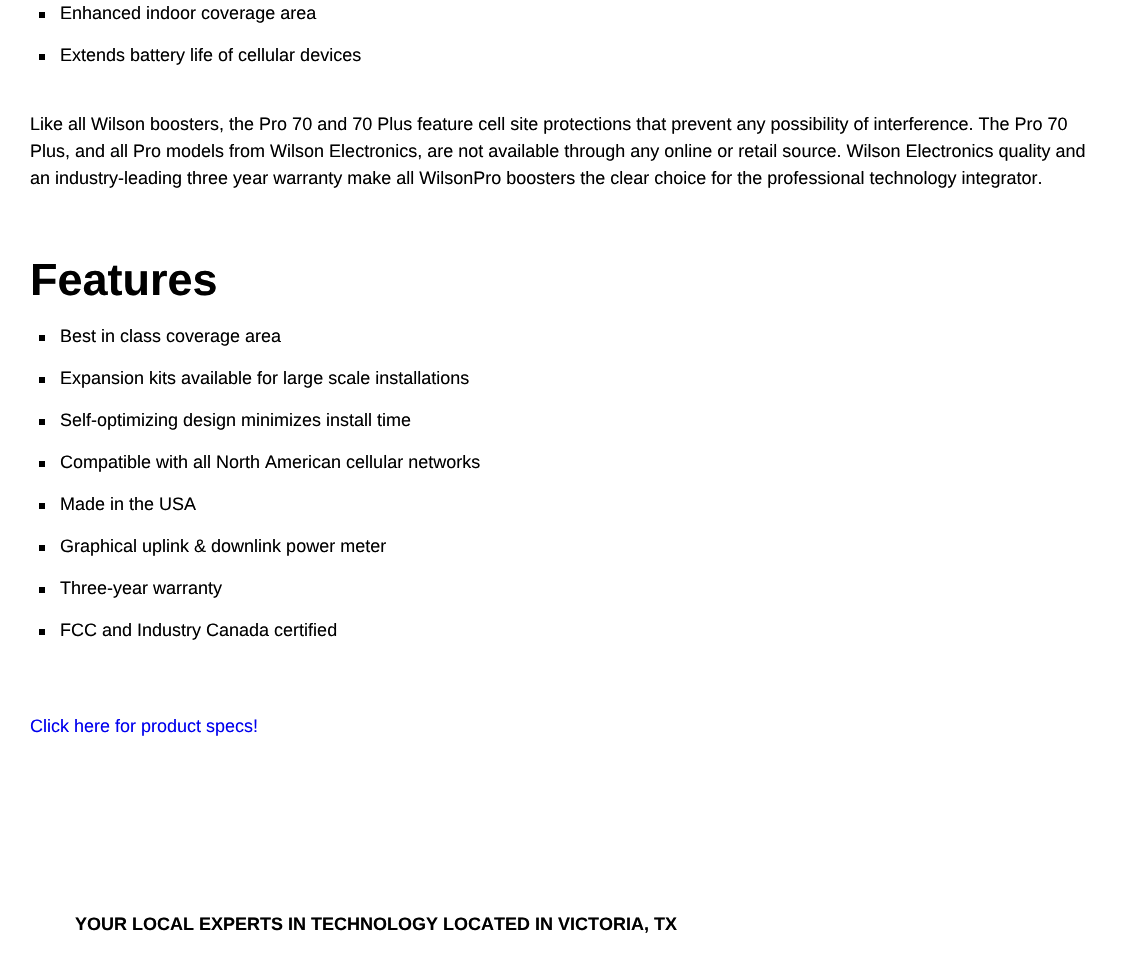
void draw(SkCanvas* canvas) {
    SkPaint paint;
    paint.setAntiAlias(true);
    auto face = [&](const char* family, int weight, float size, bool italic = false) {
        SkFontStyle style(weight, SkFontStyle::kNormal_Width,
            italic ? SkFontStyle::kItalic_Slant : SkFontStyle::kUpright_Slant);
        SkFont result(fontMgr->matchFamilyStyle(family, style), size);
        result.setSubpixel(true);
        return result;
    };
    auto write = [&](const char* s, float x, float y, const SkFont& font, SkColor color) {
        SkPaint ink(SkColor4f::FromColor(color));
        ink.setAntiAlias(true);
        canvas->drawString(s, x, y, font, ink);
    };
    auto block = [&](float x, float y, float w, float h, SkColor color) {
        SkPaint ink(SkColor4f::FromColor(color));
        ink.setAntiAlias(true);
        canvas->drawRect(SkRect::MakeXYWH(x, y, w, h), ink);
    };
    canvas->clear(SK_ColorWHITE);
    block(39, 12, 6, 6, SK_ColorBLACK);
    auto kFont1 = face("Liberation Sans", 400, 18);
    write("Enhanced indoor coverage area", 60, 19, kFont1, SK_ColorBLACK);
    block(39, 54, 6, 6, SK_ColorBLACK);
    write("Extends battery life of cellular devices", 60, 61, kFont1, SK_ColorBLACK);
    write("Like all Wilson boosters, the Pro 70 and 70 Plus feature cell site protections that prevent any possibility of interference. The Pro 70", 30, 130, kFont1, SK_ColorBLACK);
    write("Plus, and all Pro models from Wilson Electronics, are not available through any online or retail source. Wilson Electronics quality and", 30, 157, kFont1, SK_ColorBLACK);
    write("an industry-leading three year warranty make all WilsonPro boosters the clear choice for the professional technology integrator.", 30, 184, kFont1, SK_ColorBLACK);
    auto kFont2 = face("Liberation Sans", 700, 45);
    write("Features", 30, 295, kFont2, SK_ColorBLACK);
    block(39, 335, 6, 6, SK_ColorBLACK);
    write("Best in class coverage area", 60, 342, kFont1, SK_ColorBLACK);
    block(39, 377, 6, 6, SK_ColorBLACK);
    write("Expansion kits available for large scale installations", 60, 384, kFont1, SK_ColorBLACK);
    block(39, 419, 6, 6, SK_ColorBLACK);
    write("Self-optimizing design minimizes install time", 60, 426, kFont1, SK_ColorBLACK);
    block(39, 461, 6, 6, SK_ColorBLACK);
    write("Compatible with all North American cellular networks", 60, 468, kFont1, SK_ColorBLACK);
    block(39, 503, 6, 6, SK_ColorBLACK);
    write("Made in the USA", 60, 510, kFont1, SK_ColorBLACK);
    block(39, 545, 6, 6, SK_ColorBLACK);
    write("Graphical uplink & downlink power meter", 60, 552, kFont1, SK_ColorBLACK);
    block(39, 587, 6, 6, SK_ColorBLACK);
    write("Three-year warranty", 60, 594, kFont1, SK_ColorBLACK);
    block(39, 629, 6, 6, SK_ColorBLACK);
    write("FCC and Industry Canada certified", 60, 636, kFont1, SK_ColorBLACK);
    write("Click here for product specs!", 30, 732, kFont1, SkColorSetRGB(0, 0, 238));
    auto kFont3 = face("Liberation Sans", 700, 18);
    write("YOUR LOCAL EXPERTS IN TECHNOLOGY LOCATED IN VICTORIA, TX", 75, 930, kFont3, SK_ColorBLACK);
}
